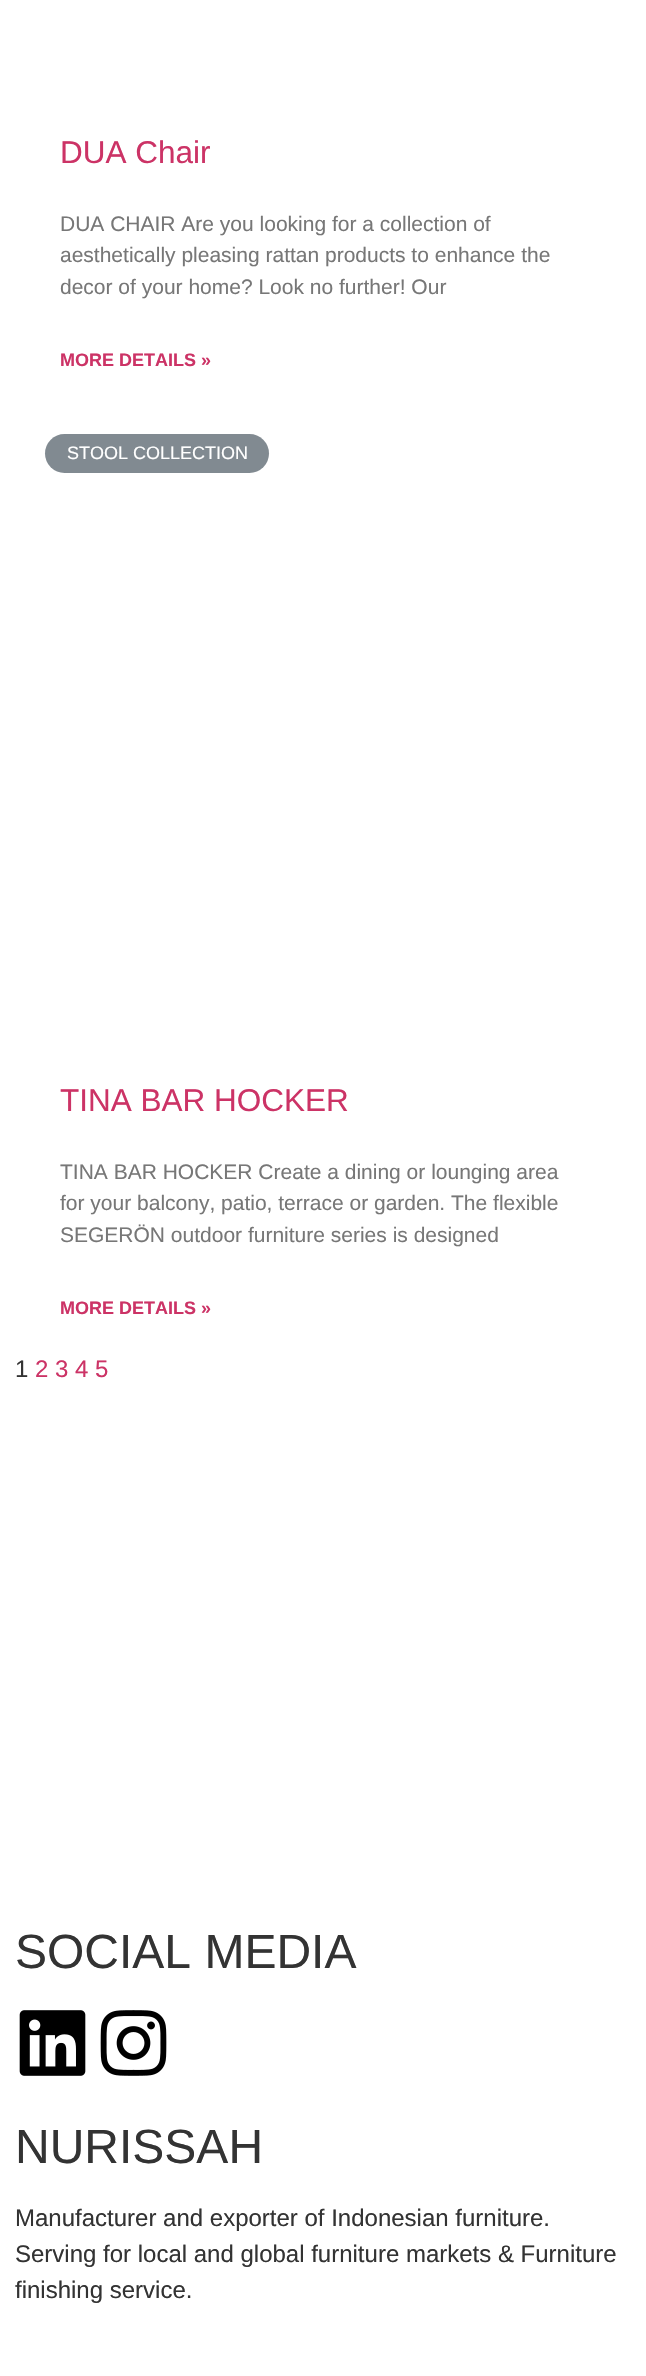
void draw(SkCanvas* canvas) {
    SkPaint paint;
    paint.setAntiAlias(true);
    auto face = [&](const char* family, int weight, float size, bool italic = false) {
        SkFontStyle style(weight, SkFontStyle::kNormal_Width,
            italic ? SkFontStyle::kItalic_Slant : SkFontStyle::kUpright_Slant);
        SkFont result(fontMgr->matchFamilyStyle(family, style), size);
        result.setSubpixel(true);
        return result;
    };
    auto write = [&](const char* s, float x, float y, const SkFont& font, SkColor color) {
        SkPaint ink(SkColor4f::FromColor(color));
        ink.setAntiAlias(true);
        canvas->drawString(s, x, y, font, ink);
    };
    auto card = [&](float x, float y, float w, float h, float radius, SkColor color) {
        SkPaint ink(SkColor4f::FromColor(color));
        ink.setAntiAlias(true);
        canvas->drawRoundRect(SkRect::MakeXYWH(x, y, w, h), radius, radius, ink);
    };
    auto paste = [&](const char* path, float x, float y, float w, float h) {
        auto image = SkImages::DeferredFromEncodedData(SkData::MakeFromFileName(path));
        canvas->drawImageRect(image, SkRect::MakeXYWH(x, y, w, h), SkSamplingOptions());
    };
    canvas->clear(SK_ColorWHITE);
    auto kFont1 = face("Liberation Sans", 400, 31.5f);
    write("DUA Chair", 60, 163, kFont1, SkColorSetRGB(204, 51, 102));
    auto kFont2 = face("Liberation Sans", 400, 21);
    write("DUA CHAIR Are you looking for a collection of", 60, 231, kFont2, SkColorSetRGB(119, 119, 119));
    write("aesthetically pleasing rattan products to enhance the", 60, 262, kFont2, SkColorSetRGB(119, 119, 119));
    write("decor of your home? Look no further! Our", 60, 294, kFont2, SkColorSetRGB(119, 119, 119));
    auto kFont3 = face("Liberation Sans", 700, 18);
    write("MORE DETAILS »", 60, 366, kFont3, SkColorSetRGB(204, 51, 102));
    card(45, 434, 224, 39, 19.5f, SkColorSetRGB(129, 138, 145));
    auto kFont4 = face("Liberation Sans", 400, 18);
    write("STOOL COLLECTION", 67, 459, kFont4, SK_ColorWHITE);
    write("TINA BAR HOCKER", 60, 1111, kFont1, SkColorSetRGB(204, 51, 102));
    write("TINA BAR HOCKER Create a dining or lounging area", 60, 1179, kFont2, SkColorSetRGB(119, 119, 119));
    write("for your balcony, patio, terrace or garden. The flexible", 60, 1210, kFont2, SkColorSetRGB(119, 119, 119));
    write("SEGERÖN outdoor furniture series is designed", 60, 1242, kFont2, SkColorSetRGB(119, 119, 119));
    write("MORE DETAILS »", 60, 1314, kFont3, SkColorSetRGB(204, 51, 102));
    auto kFont5 = face("Liberation Sans", 400, 24);
    write("1", 15, 1377, kFont5, SkColorSetRGB(51, 51, 51));
    write("2 3 4 5", 35, 1377, kFont5, SkColorSetRGB(204, 51, 102));
    auto kFont6 = face("Liberation Sans", 400, 48);
    write("SOCIAL MEDIA", 15, 1968, kFont6, SkColorSetRGB(51, 51, 51));
    paste("pic1.png", 19, 2010, 67, 66);
    paste("pic2.png", 100, 2010, 67, 66);
    write("NURISSAH", 15, 2163, kFont6, SkColorSetRGB(51, 51, 51));
    write("Manufacturer and exporter of Indonesian furniture.", 15, 2226, kFont5, SkColorSetRGB(51, 51, 51));
    write("Serving for local and global furniture markets & Furniture", 15, 2262, kFont5, SkColorSetRGB(51, 51, 51));
    write("finishing service.", 15, 2298, kFont5, SkColorSetRGB(51, 51, 51));
}
